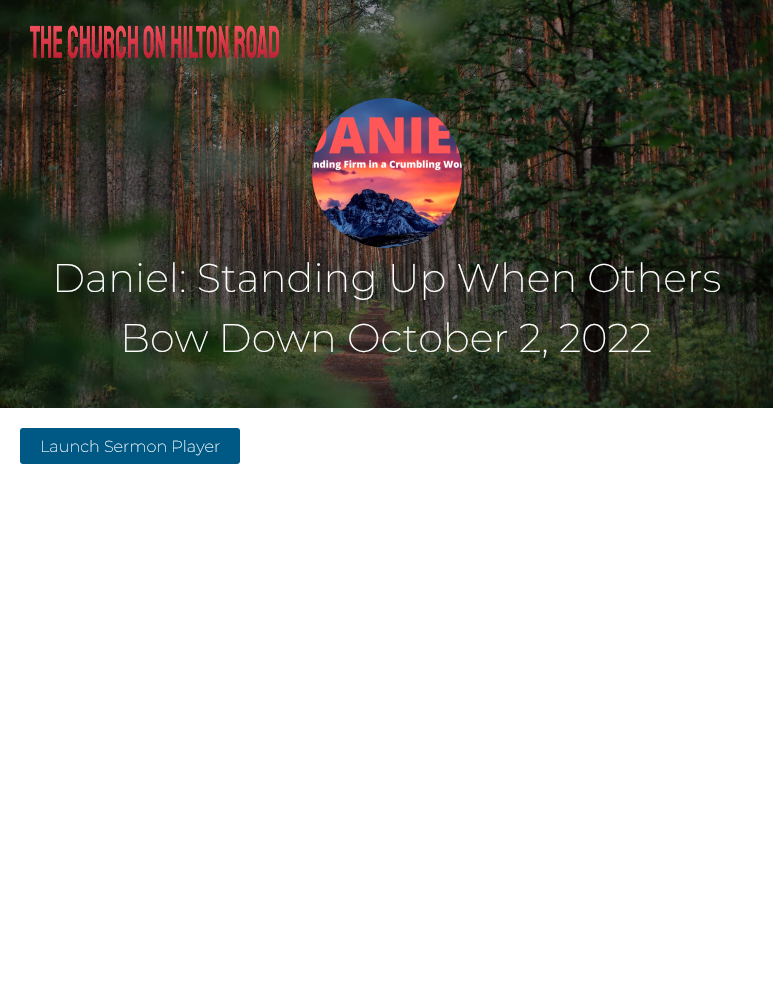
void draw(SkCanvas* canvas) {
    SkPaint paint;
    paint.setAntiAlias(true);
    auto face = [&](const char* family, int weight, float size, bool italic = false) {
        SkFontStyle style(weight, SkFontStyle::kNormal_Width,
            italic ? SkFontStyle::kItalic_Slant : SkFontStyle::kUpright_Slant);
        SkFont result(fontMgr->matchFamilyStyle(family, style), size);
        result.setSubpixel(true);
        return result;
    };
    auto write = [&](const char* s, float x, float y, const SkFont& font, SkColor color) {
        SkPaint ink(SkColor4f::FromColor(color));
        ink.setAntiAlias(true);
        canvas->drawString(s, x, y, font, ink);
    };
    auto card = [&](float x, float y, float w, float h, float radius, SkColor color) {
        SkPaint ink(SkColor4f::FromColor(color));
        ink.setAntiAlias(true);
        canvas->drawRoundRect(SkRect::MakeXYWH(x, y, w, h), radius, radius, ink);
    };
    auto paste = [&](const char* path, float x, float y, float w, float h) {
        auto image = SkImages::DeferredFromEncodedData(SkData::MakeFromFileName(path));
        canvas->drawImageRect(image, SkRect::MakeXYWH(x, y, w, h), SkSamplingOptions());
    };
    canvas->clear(SK_ColorWHITE);
    paste("pic2.png", 0, 0, 773, 408);
    paste("pic1.png", 29, 25, 251, 34);
    paste("pic3.png", 312, 98, 150, 150);
    auto kFont1 = face("Montserrat", 100, 40);
    write("Daniel: Standing Up When Others", 52, 292, kFont1, SK_ColorWHITE);
    write("Bow Down October 2, 2022", 120, 352, kFont1, SK_ColorWHITE);
    card(20, 428, 220, 36, 3, SkColorSetRGB(0, 89, 132));
    auto kFont2 = face("Montserrat", 100, 16.1f);
    write("Launch Sermon Player", 40, 452, kFont2, SK_ColorWHITE);
}
